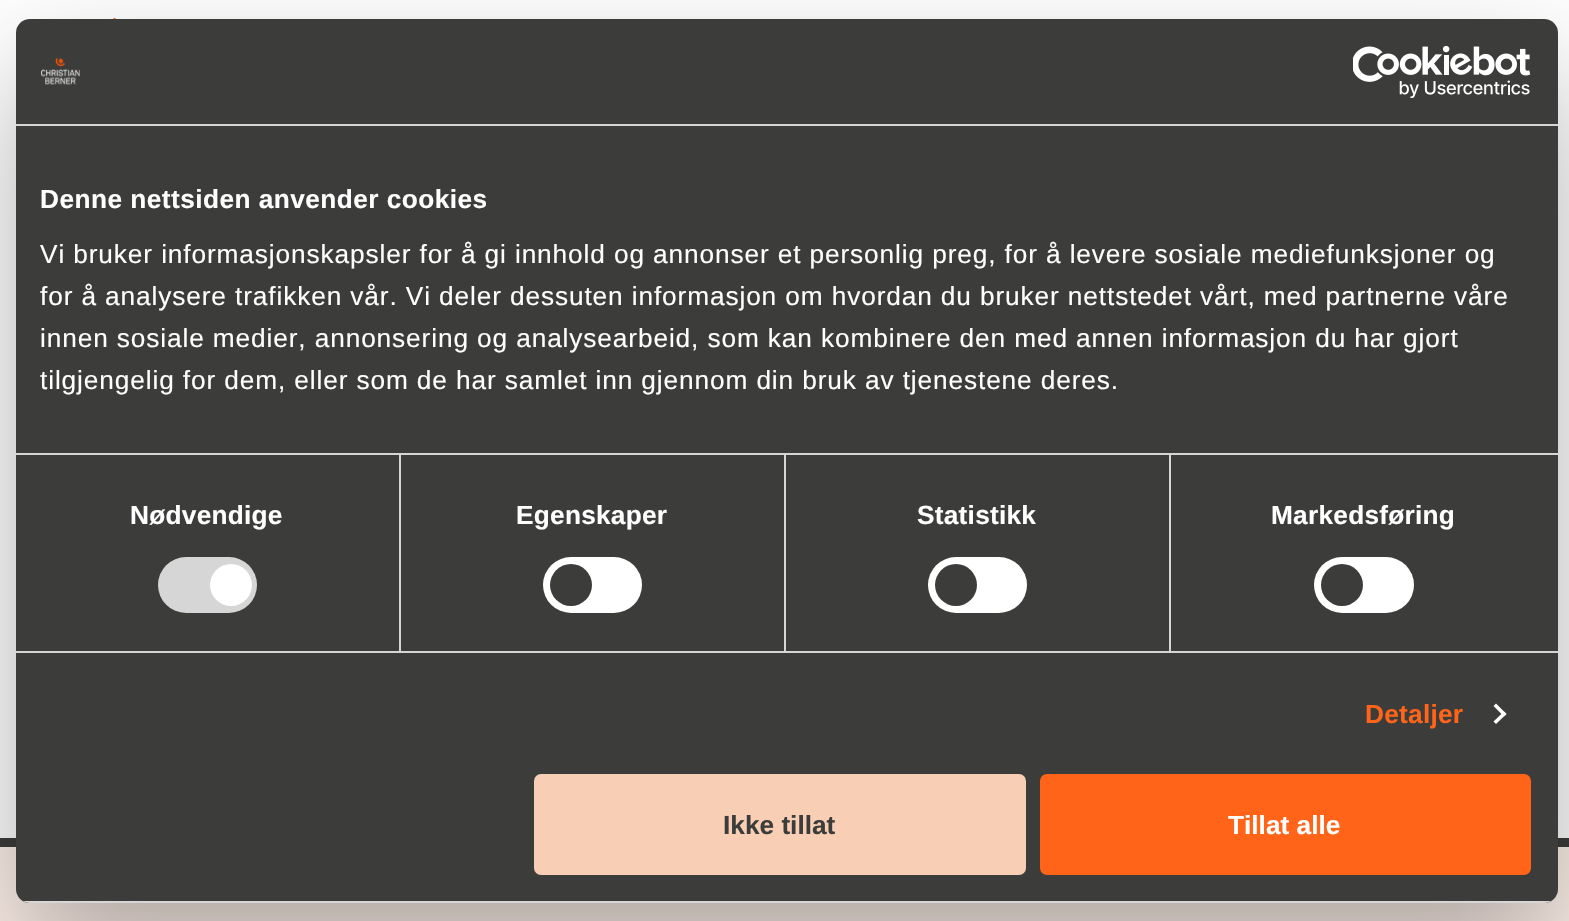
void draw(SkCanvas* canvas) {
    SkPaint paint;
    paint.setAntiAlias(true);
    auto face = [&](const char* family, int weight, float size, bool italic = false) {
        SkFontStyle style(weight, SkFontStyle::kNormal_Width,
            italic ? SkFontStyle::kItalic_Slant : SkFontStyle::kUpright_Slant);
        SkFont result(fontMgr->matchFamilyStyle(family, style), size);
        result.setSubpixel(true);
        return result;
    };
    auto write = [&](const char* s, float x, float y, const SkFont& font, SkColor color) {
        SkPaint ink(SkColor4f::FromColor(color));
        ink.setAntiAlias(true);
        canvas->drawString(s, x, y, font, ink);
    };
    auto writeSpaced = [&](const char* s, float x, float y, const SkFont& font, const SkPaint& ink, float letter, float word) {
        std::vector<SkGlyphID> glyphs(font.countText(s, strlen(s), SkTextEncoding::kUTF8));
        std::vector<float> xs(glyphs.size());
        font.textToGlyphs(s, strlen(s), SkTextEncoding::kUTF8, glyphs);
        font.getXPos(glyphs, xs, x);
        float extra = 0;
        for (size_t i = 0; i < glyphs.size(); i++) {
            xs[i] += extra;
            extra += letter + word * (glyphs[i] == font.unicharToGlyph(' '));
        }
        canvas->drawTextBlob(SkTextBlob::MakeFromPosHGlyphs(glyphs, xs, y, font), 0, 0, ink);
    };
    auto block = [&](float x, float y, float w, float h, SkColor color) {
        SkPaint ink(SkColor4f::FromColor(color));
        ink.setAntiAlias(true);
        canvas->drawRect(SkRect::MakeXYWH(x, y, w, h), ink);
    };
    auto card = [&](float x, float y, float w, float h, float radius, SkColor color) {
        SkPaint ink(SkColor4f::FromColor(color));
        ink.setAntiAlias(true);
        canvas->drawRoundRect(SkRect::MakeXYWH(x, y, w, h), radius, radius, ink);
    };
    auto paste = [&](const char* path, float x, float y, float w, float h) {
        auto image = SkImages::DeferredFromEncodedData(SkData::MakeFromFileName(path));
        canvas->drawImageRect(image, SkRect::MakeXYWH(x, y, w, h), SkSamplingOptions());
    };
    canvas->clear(SK_ColorWHITE);
    paste("pic1.png", 113, 18, 4, 1);
    block(0, 847, 1569, 74, SkColorSetRGB(254, 240, 233));
    block(0, 838, 1569, 9, SkColorSetRGB(60, 60, 59));
    paint.setColor(SkColorSetARGB(77, 0, 0, 0));
    paint.setMaskFilter(SkMaskFilter::MakeBlur(kNormal_SkBlurStyle, 59.5f));
    canvas->drawRoundRect(SkRect::MakeXYWH(16, 75, 1542, 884), 14, 14, paint);
    paint.setMaskFilter(nullptr);
    card(16, 19, 1542, 884, 14, SkColorSetRGB(60, 60, 59));
    block(16, 124, 1542, 2, SkColorSetRGB(214, 214, 214));
    paste("pic2.png", 41, 57, 39, 28);
    paste("pic3.png", 1353, 46, 178, 52);
    block(16, 453, 1542, 2, SkColorSetRGB(214, 214, 214));
    auto kFont1 = face("Liberation Sans", 700, 26.25f);
    paint.setColor(SK_ColorWHITE);
    writeSpaced("Denne nettsiden anvender cookies", 40, 208, kFont1, paint, 0.45f, 0);
    auto kFont2 = face("Liberation Sans", 400, 26.25f);
    writeSpaced("Vi bruker informasjonskapsler for å gi innhold og annonser et personlig preg, for å levere sosiale mediefunksjoner og", 40, 263, kFont2, paint, 0.88f, 0);
    writeSpaced("for å analysere trafikken vår. Vi deler dessuten informasjon om hvordan du bruker nettstedet vårt, med partnerne våre", 40, 305, kFont2, paint, 0.88f, 0);
    writeSpaced("innen sosiale medier, annonsering og analysearbeid, som kan kombinere den med annen informasjon du har gjort", 40, 347, kFont2, paint, 0.88f, 0);
    writeSpaced("tilgjengelig for dem, eller som de har samlet inn gjennom din bruk av tjenestene deres.", 40, 389, kFont2, paint, 0.88f, 0);
    block(16, 651, 1542, 2, SkColorSetRGB(214, 214, 214));
    block(399, 455, 2, 196, SkColorSetRGB(214, 214, 214));
    writeSpaced("Nødvendige", 130, 524, kFont1, paint, 0.25f, 0);
    card(158, 557, 99, 56, 28, SkColorSetRGB(214, 214, 214));
    canvas->drawCircle(231, 585, 21, paint);
    block(784, 455, 2, 196, SkColorSetRGB(214, 214, 214));
    writeSpaced("Egenskaper", 516, 524, kFont1, paint, 0.25f, 0);
    card(543, 557, 99, 56, 28, SK_ColorWHITE);
    paint.setColor(SkColorSetRGB(60, 60, 59));
    canvas->drawCircle(571, 585, 21, paint);
    block(1169, 455, 2, 196, SkColorSetRGB(214, 214, 214));
    paint.setColor(SK_ColorWHITE);
    writeSpaced("Statistikk", 917, 524, kFont1, paint, 0.25f, 0);
    card(928, 557, 99, 56, 28, SK_ColorWHITE);
    paint.setColor(SkColorSetRGB(60, 60, 59));
    canvas->drawCircle(956, 585, 21, paint);
    paint.setColor(SK_ColorWHITE);
    writeSpaced("Markedsføring", 1271, 524, kFont1, paint, 0.25f, 0);
    card(1314, 557, 100, 56, 28, SK_ColorWHITE);
    paint.setColor(SkColorSetRGB(60, 60, 59));
    canvas->drawCircle(1342, 585, 21, paint);
    paint.setColor(SkColorSetRGB(255, 100, 24));
    writeSpaced("Detaljer", 1365, 723, kFont1, paint, 0.25f, 0);
    paint.setColor(SK_ColorWHITE);
    canvas->drawPath(SkPathBuilder().moveTo(1496, 703.5f).lineTo(1506.5f, 714).lineTo(1504, 716.5f).lineTo(1493.5f, 706).close().detach(), paint);
    canvas->drawPath(SkPathBuilder().moveTo(1504, 711.5f).lineTo(1506.5f, 714).lineTo(1496, 724).lineTo(1493.5f, 721.5f).close().detach(), paint);
    canvas->save();
    canvas->clipPath(SkPathBuilder().moveTo(30, 19).lineTo(1544, 19).cubicTo(1551.5f, 19, 1558, 25.5f, 1558, 33).lineTo(1558, 889).cubicTo(1558, 896.5f, 1551.5f, 903, 1544, 903).lineTo(30, 903).cubicTo(22.5f, 903, 16, 896.5f, 16, 889).lineTo(16, 33).cubicTo(16, 25.5f, 22.5f, 19, 30, 19).close().detach(), true);
    block(16, 901, 1542, 2, SkColorSetRGB(214, 214, 214));
    canvas->restore();
    paint.setColor(SkColorSetRGB(248, 206, 181));
    canvas->drawRoundRect(SkRect::MakeXYWH(536, 776, 488, 97), 5, 5, paint);
    paint.setStyle(SkPaint::kStroke_Style);
    paint.setStrokeWidth(4);
    canvas->drawRoundRect(SkRect::MakeXYWH(536, 776, 488, 97), 5, 5, paint);
    write("Ikke tillat", 723, 834, kFont1, SkColorSetRGB(60, 60, 59));
    paint.setStyle(SkPaint::kFill_Style);
    paint.setColor(SkColorSetRGB(255, 100, 24));
    canvas->drawRoundRect(SkRect::MakeXYWH(1042, 776, 487, 97), 5, 5, paint);
    paint.setStyle(SkPaint::kStroke_Style);
    canvas->drawRoundRect(SkRect::MakeXYWH(1042, 776, 487, 97), 5, 5, paint);
    write("Tillat alle", 1228, 834, kFont1, SK_ColorWHITE);
}
